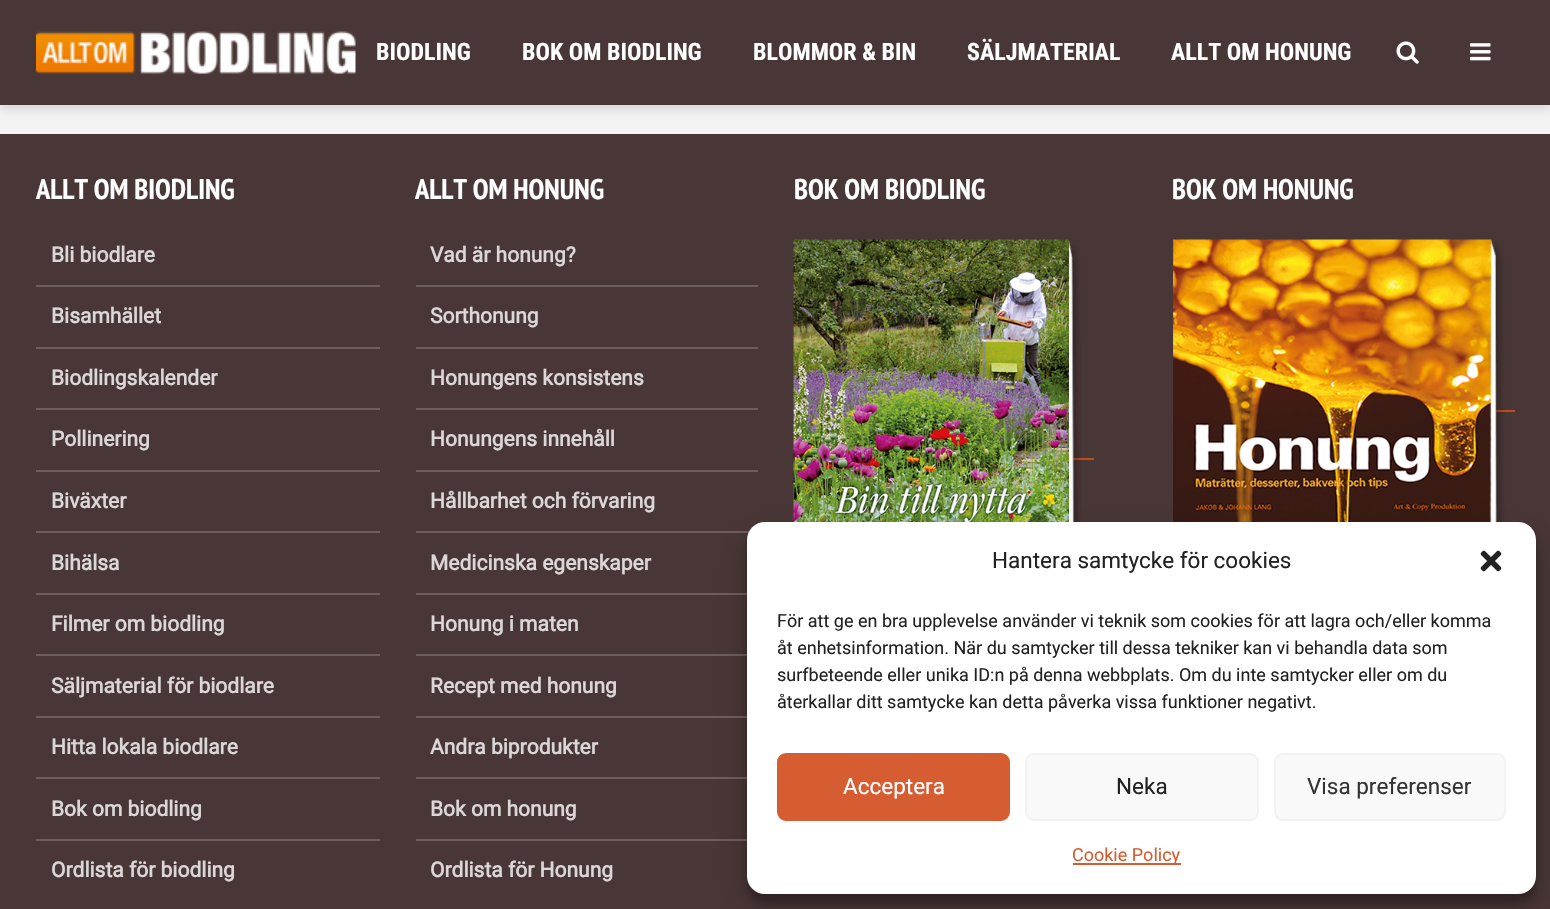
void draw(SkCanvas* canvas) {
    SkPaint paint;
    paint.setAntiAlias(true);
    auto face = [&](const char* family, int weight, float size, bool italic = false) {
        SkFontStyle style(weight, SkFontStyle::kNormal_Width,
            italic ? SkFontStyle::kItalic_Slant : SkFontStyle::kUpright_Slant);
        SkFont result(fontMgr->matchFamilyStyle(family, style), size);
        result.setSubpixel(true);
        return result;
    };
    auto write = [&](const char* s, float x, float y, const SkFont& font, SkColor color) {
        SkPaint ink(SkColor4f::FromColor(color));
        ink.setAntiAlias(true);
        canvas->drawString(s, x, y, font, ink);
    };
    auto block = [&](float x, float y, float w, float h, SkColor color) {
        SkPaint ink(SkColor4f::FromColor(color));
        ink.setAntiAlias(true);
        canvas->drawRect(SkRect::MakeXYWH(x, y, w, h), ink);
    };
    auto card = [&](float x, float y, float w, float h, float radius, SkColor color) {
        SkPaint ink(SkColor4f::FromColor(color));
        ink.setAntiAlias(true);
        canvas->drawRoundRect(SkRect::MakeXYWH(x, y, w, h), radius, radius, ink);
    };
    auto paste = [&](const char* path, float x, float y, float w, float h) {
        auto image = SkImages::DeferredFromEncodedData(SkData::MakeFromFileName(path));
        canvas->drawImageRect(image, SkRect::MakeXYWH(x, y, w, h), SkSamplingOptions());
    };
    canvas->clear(SkColorSetRGB(243, 243, 243));
    paint.setColor(SkColorSetARGB(26, 0, 1, 1));
    paint.setMaskFilter(SkMaskFilter::MakeBlur(kNormal_SkBlurStyle, 4));
    canvas->drawRect(SkRect::MakeXYWH(0, 5, 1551, 105), paint);
    paint.setMaskFilter(nullptr);
    block(0, 0, 1550, 105, SkColorSetRGB(73, 54, 54));
    paste("pic1.png", 36, 31, 320, 44);
    auto kFont1 = face("Roboto Condensed", 700, 24);
    write("BIODLING", 376, 60, kFont1, SK_ColorWHITE);
    write("BOK OM BIODLING", 522, 60, kFont1, SK_ColorWHITE);
    write("BLOMMOR & BIN", 753, 60, kFont1, SK_ColorWHITE);
    write("SÄLJMATERIAL", 967, 60, kFont1, SK_ColorWHITE);
    write("ALLT OM HONUNG", 1171, 60, kFont1, SK_ColorWHITE);
    paste("pic2.png", 1396, 41, 23, 23);
    paste("pic3.png", 1470, 43, 21, 18);
    block(0, 134, 1550, 775, SkColorSetRGB(73, 54, 54));
    auto kFont2 = face("PT Sans Narrow", 700, 28.5f);
    write("ALLT OM BIODLING", 36, 199, kFont2, SK_ColorWHITE);
    block(36, 285, 344, 2, SkColorSetRGB(109, 94, 94));
    auto kFont3 = face("Roboto", 700, 21);
    write("Bli biodlare", 51, 262, kFont3, SkColorSetRGB(219, 215, 215));
    block(36, 347, 344, 2, SkColorSetRGB(109, 94, 94));
    write("Bisamhället", 51, 323, kFont3, SkColorSetRGB(219, 215, 215));
    block(36, 408, 344, 2, SkColorSetRGB(109, 94, 94));
    write("Biodlingskalender", 51, 385, kFont3, SkColorSetRGB(219, 215, 215));
    block(36, 470, 344, 2, SkColorSetRGB(109, 94, 94));
    write("Pollinering", 51, 446, kFont3, SkColorSetRGB(219, 215, 215));
    block(36, 531, 344, 2, SkColorSetRGB(109, 94, 94));
    write("Biväxter", 51, 508, kFont3, SkColorSetRGB(219, 215, 215));
    block(36, 593, 344, 2, SkColorSetRGB(109, 94, 94));
    write("Bihälsa", 51, 570, kFont3, SkColorSetRGB(219, 215, 215));
    block(36, 654, 344, 2, SkColorSetRGB(109, 94, 94));
    write("Filmer om biodling", 51, 631, kFont3, SkColorSetRGB(219, 215, 215));
    block(36, 716, 344, 2, SkColorSetRGB(109, 94, 94));
    write("Säljmaterial för biodlare", 51, 693, kFont3, SkColorSetRGB(219, 215, 215));
    block(36, 777, 344, 2, SkColorSetRGB(109, 94, 94));
    write("Hitta lokala biodlare", 51, 754, kFont3, SkColorSetRGB(219, 215, 215));
    block(36, 839, 344, 2, SkColorSetRGB(109, 94, 94));
    write("Bok om biodling", 51, 816, kFont3, SkColorSetRGB(219, 215, 215));
    write("Ordlista för biodling", 51, 877, kFont3, SkColorSetRGB(219, 215, 215));
    write("ALLT OM HONUNG", 415, 199, kFont2, SK_ColorWHITE);
    block(416, 285, 342, 2, SkColorSetRGB(109, 94, 94));
    write("Vad är honung?", 430, 262, kFont3, SkColorSetRGB(219, 215, 215));
    block(416, 347, 342, 2, SkColorSetRGB(109, 94, 94));
    write("Sorthonung", 430, 323, kFont3, SkColorSetRGB(219, 215, 215));
    block(416, 408, 342, 2, SkColorSetRGB(109, 94, 94));
    write("Honungens konsistens", 430, 385, kFont3, SkColorSetRGB(219, 215, 215));
    block(416, 470, 342, 2, SkColorSetRGB(109, 94, 94));
    write("Honungens innehåll", 430, 446, kFont3, SkColorSetRGB(219, 215, 215));
    block(416, 531, 342, 2, SkColorSetRGB(109, 94, 94));
    write("Hållbarhet och förvaring", 430, 508, kFont3, SkColorSetRGB(219, 215, 215));
    block(416, 593, 331, 2, SkColorSetRGB(109, 94, 94));
    write("Medicinska egenskaper", 430, 570, kFont3, SkColorSetRGB(219, 215, 215));
    block(416, 654, 331, 2, SkColorSetRGB(109, 94, 94));
    write("Honung i maten", 430, 631, kFont3, SkColorSetRGB(219, 215, 215));
    block(416, 716, 331, 2, SkColorSetRGB(109, 94, 94));
    write("Recept med honung", 430, 693, kFont3, SkColorSetRGB(219, 215, 215));
    block(416, 777, 331, 2, SkColorSetRGB(109, 94, 94));
    write("Andra biprodukter", 430, 754, kFont3, SkColorSetRGB(219, 215, 215));
    block(416, 839, 331, 2, SkColorSetRGB(109, 94, 94));
    write("Bok om honung", 430, 816, kFont3, SkColorSetRGB(219, 215, 215));
    write("Ordlista för Honung", 430, 877, kFont3, SkColorSetRGB(219, 215, 215));
    write("BOK OM BIODLING", 794, 199, kFont2, SK_ColorWHITE);
    block(1072, 458, 22, 2, SkColorSetRGB(190, 76, 28));
    paste("pic4.png", 793, 239, 289, 283);
    write("BOK OM HONUNG", 1172, 199, kFont2, SK_ColorWHITE);
    block(1173, 410, 342, 2, SkColorSetRGB(190, 76, 28));
    paste("pic5.png", 1173, 239, 332, 283);
    paint.setColor(SkColorSetARGB(59, 0, 0, 0));
    paint.setMaskFilter(SkMaskFilter::MakeBlur(kNormal_SkBlurStyle, 4.5f));
    canvas->drawRoundRect(SkRect::MakeXYWH(747, 531, 789, 372), 18, 18, paint);
    paint.setMaskFilter(nullptr);
    paint.setColor(SkColorSetARGB(48, 0, 0, 0));
    paint.setMaskFilter(SkMaskFilter::MakeBlur(kNormal_SkBlurStyle, 15));
    canvas->drawRoundRect(SkRect::MakeXYWH(747, 537, 789, 372), 18, 18, paint);
    paint.setMaskFilter(nullptr);
    card(747, 522, 789, 372, 18, SK_ColorWHITE);
    auto kFont4 = face("Roboto", 400, 22.5f);
    write("Hantera samtycke för cookies", 992, 568, kFont4, SkColorSetRGB(34, 34, 34));
    paste("pic6.png", 1480, 550, 22, 22);
    auto kFont5 = face("Roboto", 400, 18);
    write("För att ge en bra upplevelse använder vi teknik som cookies för att lagra och/eller komma", 777, 627, kFont5, SkColorSetRGB(34, 34, 34));
    write("åt enhetsinformation. När du samtycker till dessa tekniker kan vi behandla data som", 777, 654, kFont5, SkColorSetRGB(34, 34, 34));
    write("surfbeteende eller unika ID:n på denna webbplats. Om du inte samtycker eller om du", 777, 681, kFont5, SkColorSetRGB(34, 34, 34));
    write("återkallar ditt samtycke kan detta påverka vissa funktioner negativt.", 777, 708, kFont5, SkColorSetRGB(34, 34, 34));
    paint.setColor(SkColorSetRGB(214, 93, 49));
    canvas->drawRoundRect(SkRect::MakeXYWH(778, 754, 231, 66), 8, 8, paint);
    paint.setStyle(SkPaint::kStroke_Style);
    paint.setStrokeWidth(2);
    canvas->drawRoundRect(SkRect::MakeXYWH(778, 754, 231, 66), 8, 8, paint);
    write("Acceptera", 843, 794, kFont4, SK_ColorWHITE);
    paint.setStyle(SkPaint::kFill_Style);
    paint.setColor(SkColorSetRGB(249, 249, 249));
    canvas->drawRoundRect(SkRect::MakeXYWH(1026, 754, 232, 66), 8, 8, paint);
    paint.setStyle(SkPaint::kStroke_Style);
    paint.setColor(SkColorSetRGB(242, 242, 242));
    canvas->drawRoundRect(SkRect::MakeXYWH(1026, 754, 232, 66), 8, 8, paint);
    write("Neka", 1116, 794, kFont4, SkColorSetRGB(34, 34, 34));
    paint.setStyle(SkPaint::kFill_Style);
    paint.setColor(SkColorSetRGB(249, 249, 249));
    canvas->drawRoundRect(SkRect::MakeXYWH(1275, 754, 230, 66), 8, 8, paint);
    paint.setStyle(SkPaint::kStroke_Style);
    paint.setColor(SkColorSetRGB(242, 242, 242));
    canvas->drawRoundRect(SkRect::MakeXYWH(1275, 754, 230, 66), 8, 8, paint);
    write("Visa preferenser", 1307, 794, kFont4, SkColorSetRGB(51, 51, 51));
    block(1073, 863, 108, 2, SkColorSetRGB(214, 93, 49));
    write("Cookie Policy", 1072, 861, kFont5, SkColorSetRGB(214, 93, 49));
}
